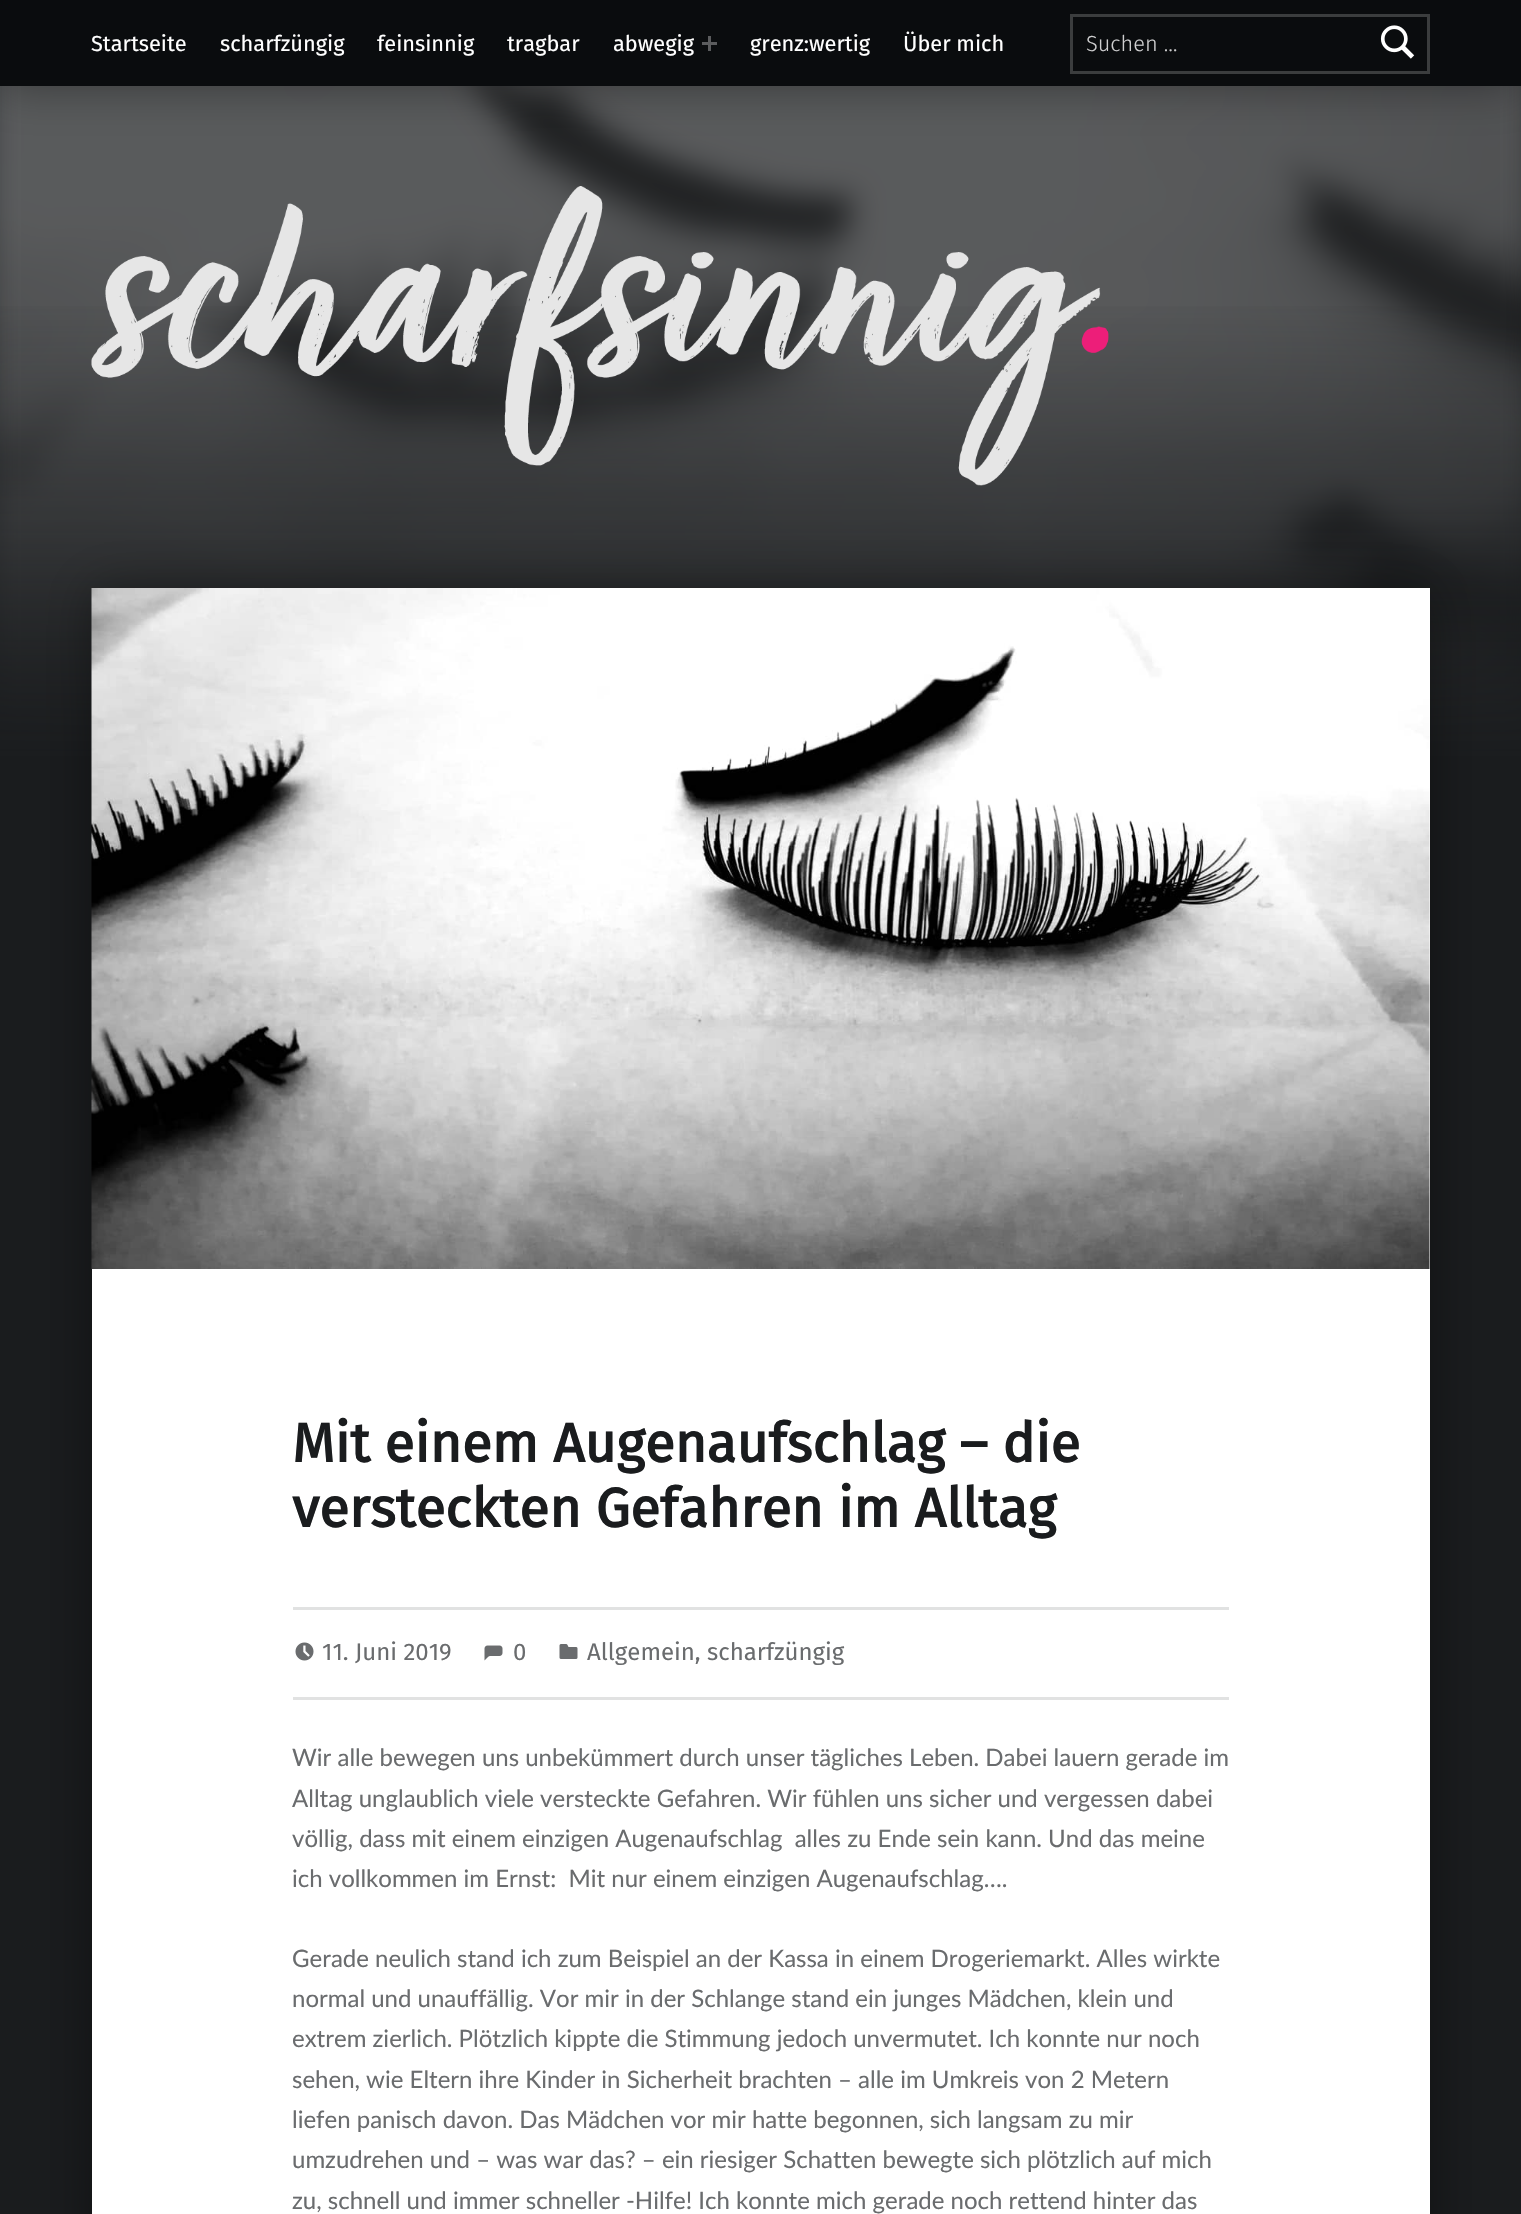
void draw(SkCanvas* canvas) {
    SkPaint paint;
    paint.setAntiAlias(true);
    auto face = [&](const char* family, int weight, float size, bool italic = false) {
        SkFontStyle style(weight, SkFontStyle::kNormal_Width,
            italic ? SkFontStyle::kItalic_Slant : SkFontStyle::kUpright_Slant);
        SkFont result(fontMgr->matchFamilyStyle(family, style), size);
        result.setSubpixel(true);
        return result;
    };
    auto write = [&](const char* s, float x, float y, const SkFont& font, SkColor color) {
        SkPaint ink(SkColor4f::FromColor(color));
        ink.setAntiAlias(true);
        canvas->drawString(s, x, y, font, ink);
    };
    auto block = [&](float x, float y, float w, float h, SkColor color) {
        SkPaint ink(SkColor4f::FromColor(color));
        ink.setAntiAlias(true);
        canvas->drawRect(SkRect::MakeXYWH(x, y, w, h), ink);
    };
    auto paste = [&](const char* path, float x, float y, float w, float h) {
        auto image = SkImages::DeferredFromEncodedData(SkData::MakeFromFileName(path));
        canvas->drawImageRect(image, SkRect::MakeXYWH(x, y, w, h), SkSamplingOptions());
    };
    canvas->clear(SkColorSetRGB(26, 28, 30));
    paste("pic3.png", 0, 86, 1521, 670);
    paint.setColor(SkColorSetARGB(102, 0, 0, 0));
    paint.setMaskFilter(SkMaskFilter::MakeBlur(kNormal_SkBlurStyle, 24));
    canvas->drawRect(SkRect::MakeXYWH(0, 0, 1521, 86), paint);
    paint.setMaskFilter(nullptr);
    block(0, 0, 1521, 86, SkColorSetRGB(10, 12, 14));
    auto kFont1 = face("Fira Sans", 400, 21.75f);
    write("Startseite", 91, 51, kFont1, SK_ColorWHITE);
    write("scharfzüngig", 220, 51, kFont1, SK_ColorWHITE);
    write("feinsinnig", 377, 51, kFont1, SK_ColorWHITE);
    write("tragbar", 507, 51, kFont1, SK_ColorWHITE);
    write("abwegig", 613, 51, kFont1, SK_ColorWHITE);
    block(702, 42, 15, 3, SkColorSetRGB(91, 92, 94));
    block(708, 36, 3, 15, SkColorSetRGB(91, 92, 94));
    write("grenz:wertig", 750, 51, kFont1, SK_ColorWHITE);
    write("Über mich", 903, 51, kFont1, SK_ColorWHITE);
    paint.setStyle(SkPaint::kStroke_Style);
    paint.setStrokeWidth(3);
    paint.setColor(SkColorSetRGB(59, 61, 62));
    canvas->drawRect(SkRect::MakeXYWH(1071.5f, 15.5f, 357, 57), paint);
    auto kFont2 = face("Fira Sans", 300, 21.75f);
    write("Suchen …", 1086, 51, kFont2, SkColorSetRGB(206, 206, 207));
    paste("pic1.png", 1380, 25, 35, 34);
    paint.setStyle(SkPaint::kFill_Style);
    {
        const SkColor colors[] = {SkColorSetARGB(0, 26, 28, 30), SkColorSetRGB(26, 28, 30)};
        const float stops[] = {0, 1};
        const SkPoint ends[] = {{761, 288}, {761, 759}};
        paint.setShader(SkGradientShader::MakeLinear(ends, colors, stops, 2, SkTileMode::kClamp));
        paint.setAlpha(255);
    }
    canvas->drawRect(SkRect::MakeXYWH(0, 306, 1521, 450), paint);
    paste("pic2.png", 91, 186, 1018, 300);
    paint.setShader(nullptr);
    paint.setColor(SkColorSetARGB(102, 0, 0, 0));
    paint.setMaskFilter(SkMaskFilter::MakeBlur(kNormal_SkBlurStyle, 24));
    canvas->drawRect(SkRect::MakeXYWH(92, 588, 1338, 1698), paint);
    paint.setMaskFilter(nullptr);
    block(92, 588, 1338, 1626, SK_ColorWHITE);
    paste("pic4.png", 91, 588, 1339, 681);
    auto kFont3 = face("Fira Sans", 700, 54.75f);
    write("Mit einem Augenaufschlag – die", 292, 1462, kFont3, SkColorSetRGB(26, 28, 30));
    write("versteckten Gefahren im Alltag", 292, 1527, kFont3, SkColorSetRGB(26, 28, 30));
    block(293, 1607, 936, 3, SkColorSetRGB(225, 226, 226));
    block(293, 1697, 936, 3, SkColorSetRGB(225, 226, 226));
    paste("pic5.png", 295, 1642, 19, 19);
    auto kFont4 = face("Fira Sans", 400, 24);
    write("11. Juni 2019", 322, 1660, kFont4, SkColorSetRGB(106, 108, 110));
    paste("pic6.png", 484, 1645, 19, 16);
    write("0", 513, 1660, kFont4, SkColorSetRGB(106, 108, 110));
    paste("pic7.png", 559, 1644, 19, 15);
    write("Allgemein, scharfzüngig", 587, 1660, kFont4, SkColorSetRGB(106, 108, 110));
    auto kFont5 = face("Lato", 400, 24);
    write("Wir alle bewegen uns unbekümmert durch unser tägliches Leben. Dabei lauern gerade im", 292, 1766, kFont5, SkColorSetRGB(106, 108, 110));
    write("Alltag unglaublich viele versteckte Gefahren. Wir fühlen uns sicher und vergessen dabei", 292, 1807, kFont5, SkColorSetRGB(106, 108, 110));
    write("völlig, dass mit einem einzigen Augenaufschlag  alles zu Ende sein kann. Und das meine", 292, 1847, kFont5, SkColorSetRGB(106, 108, 110));
    write("ich vollkommen im Ernst:  Mit nur einem einzigen Augenaufschlag….", 292, 1887, kFont5, SkColorSetRGB(106, 108, 110));
    write("Gerade neulich stand ich zum Beispiel an der Kassa in einem Drogeriemarkt. Alles wirkte", 292, 1967, kFont5, SkColorSetRGB(106, 108, 110));
    write("normal und unauffällig. Vor mir in der Schlange stand ein junges Mädchen, klein und", 292, 2007, kFont5, SkColorSetRGB(106, 108, 110));
    write("extrem zierlich. Plötzlich kippte die Stimmung jedoch unvermutet. Ich konnte nur noch", 292, 2047, kFont5, SkColorSetRGB(106, 108, 110));
    write("sehen, wie Eltern ihre Kinder in Sicherheit brachten – alle im Umkreis von 2 Metern", 292, 2088, kFont5, SkColorSetRGB(106, 108, 110));
    write("liefen panisch davon. Das Mädchen vor mir hatte begonnen, sich langsam zu mir", 292, 2128, kFont5, SkColorSetRGB(106, 108, 110));
    write("umzudrehen und – was war das? – ein riesiger Schatten bewegte sich plötzlich auf mich", 292, 2168, kFont5, SkColorSetRGB(106, 108, 110));
    write("zu, schnell und immer schneller -Hilfe! Ich konnte mich gerade noch rettend hinter das", 292, 2209, kFont5, SkColorSetRGB(106, 108, 110));
}
